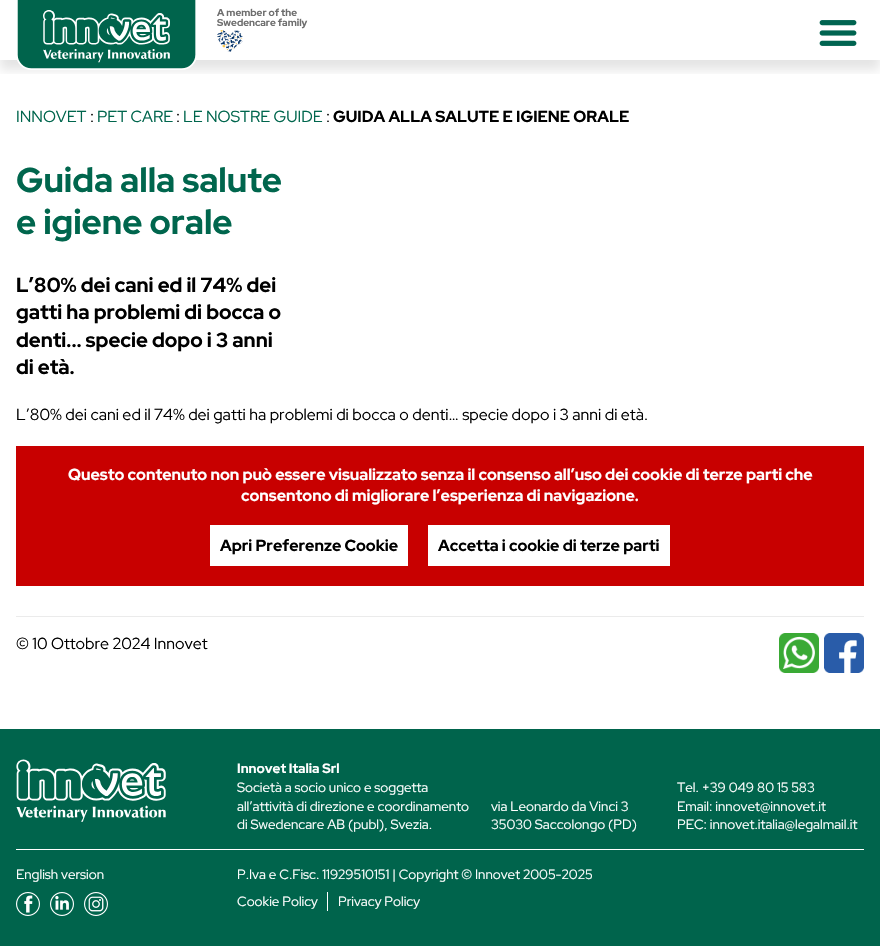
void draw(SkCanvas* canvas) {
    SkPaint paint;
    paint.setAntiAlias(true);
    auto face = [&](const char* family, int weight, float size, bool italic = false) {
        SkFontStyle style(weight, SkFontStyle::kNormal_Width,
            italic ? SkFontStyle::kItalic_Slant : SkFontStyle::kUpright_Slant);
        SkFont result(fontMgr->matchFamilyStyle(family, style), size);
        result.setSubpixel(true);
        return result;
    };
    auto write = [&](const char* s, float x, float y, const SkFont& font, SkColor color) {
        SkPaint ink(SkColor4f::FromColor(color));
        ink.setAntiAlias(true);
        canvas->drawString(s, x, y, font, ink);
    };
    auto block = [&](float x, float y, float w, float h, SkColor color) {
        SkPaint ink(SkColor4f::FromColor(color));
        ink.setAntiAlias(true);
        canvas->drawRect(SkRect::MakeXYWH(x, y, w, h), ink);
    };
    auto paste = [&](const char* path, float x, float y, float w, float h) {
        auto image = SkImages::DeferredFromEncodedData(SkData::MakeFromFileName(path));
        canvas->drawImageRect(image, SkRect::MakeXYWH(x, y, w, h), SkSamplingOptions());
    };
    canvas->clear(SK_ColorWHITE);
    canvas->save();
    canvas->clipRect(SkRect::MakeXYWH(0, 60, 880, 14));
    paint.setColor(SkColorSetARGB(26, 0, 0, 0));
    paint.setMaskFilter(SkMaskFilter::MakeBlur(kNormal_SkBlurStyle, 5));
    canvas->drawRect(SkRect::MakeXYWH(0, 10, 880, 60), paint);
    paint.setMaskFilter(nullptr);
    canvas->restore();
    paste("pic1.png", 17, 0, 179, 70);
    auto kFont1 = face("Red Hat Display", 700, 10);
    write("A member of the", 217, 16, kFont1, SkColorSetRGB(110, 110, 110));
    write("Swedencare family", 217, 26, kFont1, SkColorSetRGB(110, 110, 110));
    paste("pic2.png", 217, 30, 26, 22);
    paste("pic3.png", 819, 20, 38, 26);
    auto kFont2 = face("Red Hat Display", 400, 16);
    write("INNOVET", 16, 122, kFont2, SkColorSetRGB(0, 102, 77));
    write(":", 90, 122, kFont2, SK_ColorBLACK);
    write("PET CARE", 97, 122, kFont2, SkColorSetRGB(0, 102, 77));
    write(":", 176, 122, kFont2, SK_ColorBLACK);
    write("LE NOSTRE GUIDE", 183, 122, kFont2, SkColorSetRGB(0, 102, 77));
    write(":", 326, 122, kFont2, SK_ColorBLACK);
    auto kFont3 = face("Red Hat Display", 700, 16);
    write("GUIDA ALLA SALUTE E IGIENE ORALE", 333, 122, kFont3, SK_ColorBLACK);
    auto kFont4 = face("Red Hat Display", 700, 34.5f);
    write("Guida alla salute", 16, 192, kFont4, SkColorSetRGB(0, 102, 77));
    write("e igiene orale", 16, 234, kFont4, SkColorSetRGB(0, 102, 77));
    auto kFont5 = face("Red Hat Display", 700, 20.3f);
    write("L’80% dei cani ed il 74% dei", 16, 292, kFont5, SK_ColorBLACK);
    write("gatti ha problemi di bocca o", 16, 319, kFont5, SK_ColorBLACK);
    write("denti... specie dopo i 3 anni", 16, 347, kFont5, SK_ColorBLACK);
    write("di età.", 16, 374, kFont5, SK_ColorBLACK);
    write("L’80% dei cani ed il 74% dei gatti ha problemi di bocca o denti… specie dopo i 3 anni di età.", 16, 420, kFont2, SK_ColorBLACK);
    block(16, 446, 848, 140, SkColorSetRGB(200, 0, 0));
    write("Questo contenuto non può essere visualizzato senza il consenso all’uso dei cookie di terze parti che", 68, 480, kFont3, SK_ColorWHITE);
    write("consentono di migliorare l’esperienza di navigazione.", 241, 501, kFont3, SK_ColorWHITE);
    block(210, 525, 198, 41, SK_ColorWHITE);
    write("Apri Preferenze Cookie", 220, 551, kFont3, SK_ColorBLACK);
    block(428, 525, 242, 41, SK_ColorWHITE);
    write("Accetta i cookie di terze parti", 438, 551, kFont3, SK_ColorBLACK);
    block(16, 616, 848, 1, SkColorSetRGB(235, 235, 235));
    write("© 10 Ottobre 2024 Innovet", 16, 649, kFont2, SK_ColorBLACK);
    paste("pic4.png", 779, 633, 40, 40);
    paste("pic5.png", 824, 633, 40, 40);
    block(0, 729, 880, 217, SkColorSetRGB(0, 100, 76));
    paste("pic6.png", 16, 759, 150, 63);
    auto kFont6 = face("Red Hat Display", 700, 13.4f);
    write("Innovet Italia Srl", 237, 773, kFont6, SK_ColorWHITE);
    auto kFont7 = face("Red Hat Display", 400, 13.4f);
    write("Società a socio unico e soggetta", 237, 792, kFont7, SK_ColorWHITE);
    write("all’attività di direzione e coordinamento", 237, 811, kFont7, SK_ColorWHITE);
    write("di Swedencare AB (publ), Svezia.", 237, 829, kFont7, SK_ColorWHITE);
    write("via Leonardo da Vinci 3", 491, 811, kFont7, SK_ColorWHITE);
    write("35030 Saccolongo (PD)", 491, 829, kFont7, SK_ColorWHITE);
    write("Tel. +39 049 80 15 583", 677, 792, kFont7, SK_ColorWHITE);
    write("Email: innovet@innovet.it", 677, 811, kFont7, SK_ColorWHITE);
    write("PEC: innovet.italia@legalmail.it", 677, 829, kFont7, SK_ColorWHITE);
    block(16, 849, 848, 1, SK_ColorWHITE);
    write("English version", 16, 879, kFont7, SK_ColorWHITE);
    write("P.Iva e C.Fisc. 11929510151 | Copyright © Innovet 2005-2025", 237, 879, kFont7, SK_ColorWHITE);
    paste("pic7.png", 16, 892, 24, 24);
    paste("pic8.png", 50, 892, 24, 24);
    paste("pic9.png", 84, 892, 24, 24);
    write("Cookie Policy", 237, 906, kFont7, SK_ColorWHITE);
    block(327, 892, 1, 19, SK_ColorWHITE);
    write("Privacy Policy", 338, 906, kFont7, SK_ColorWHITE);
}
